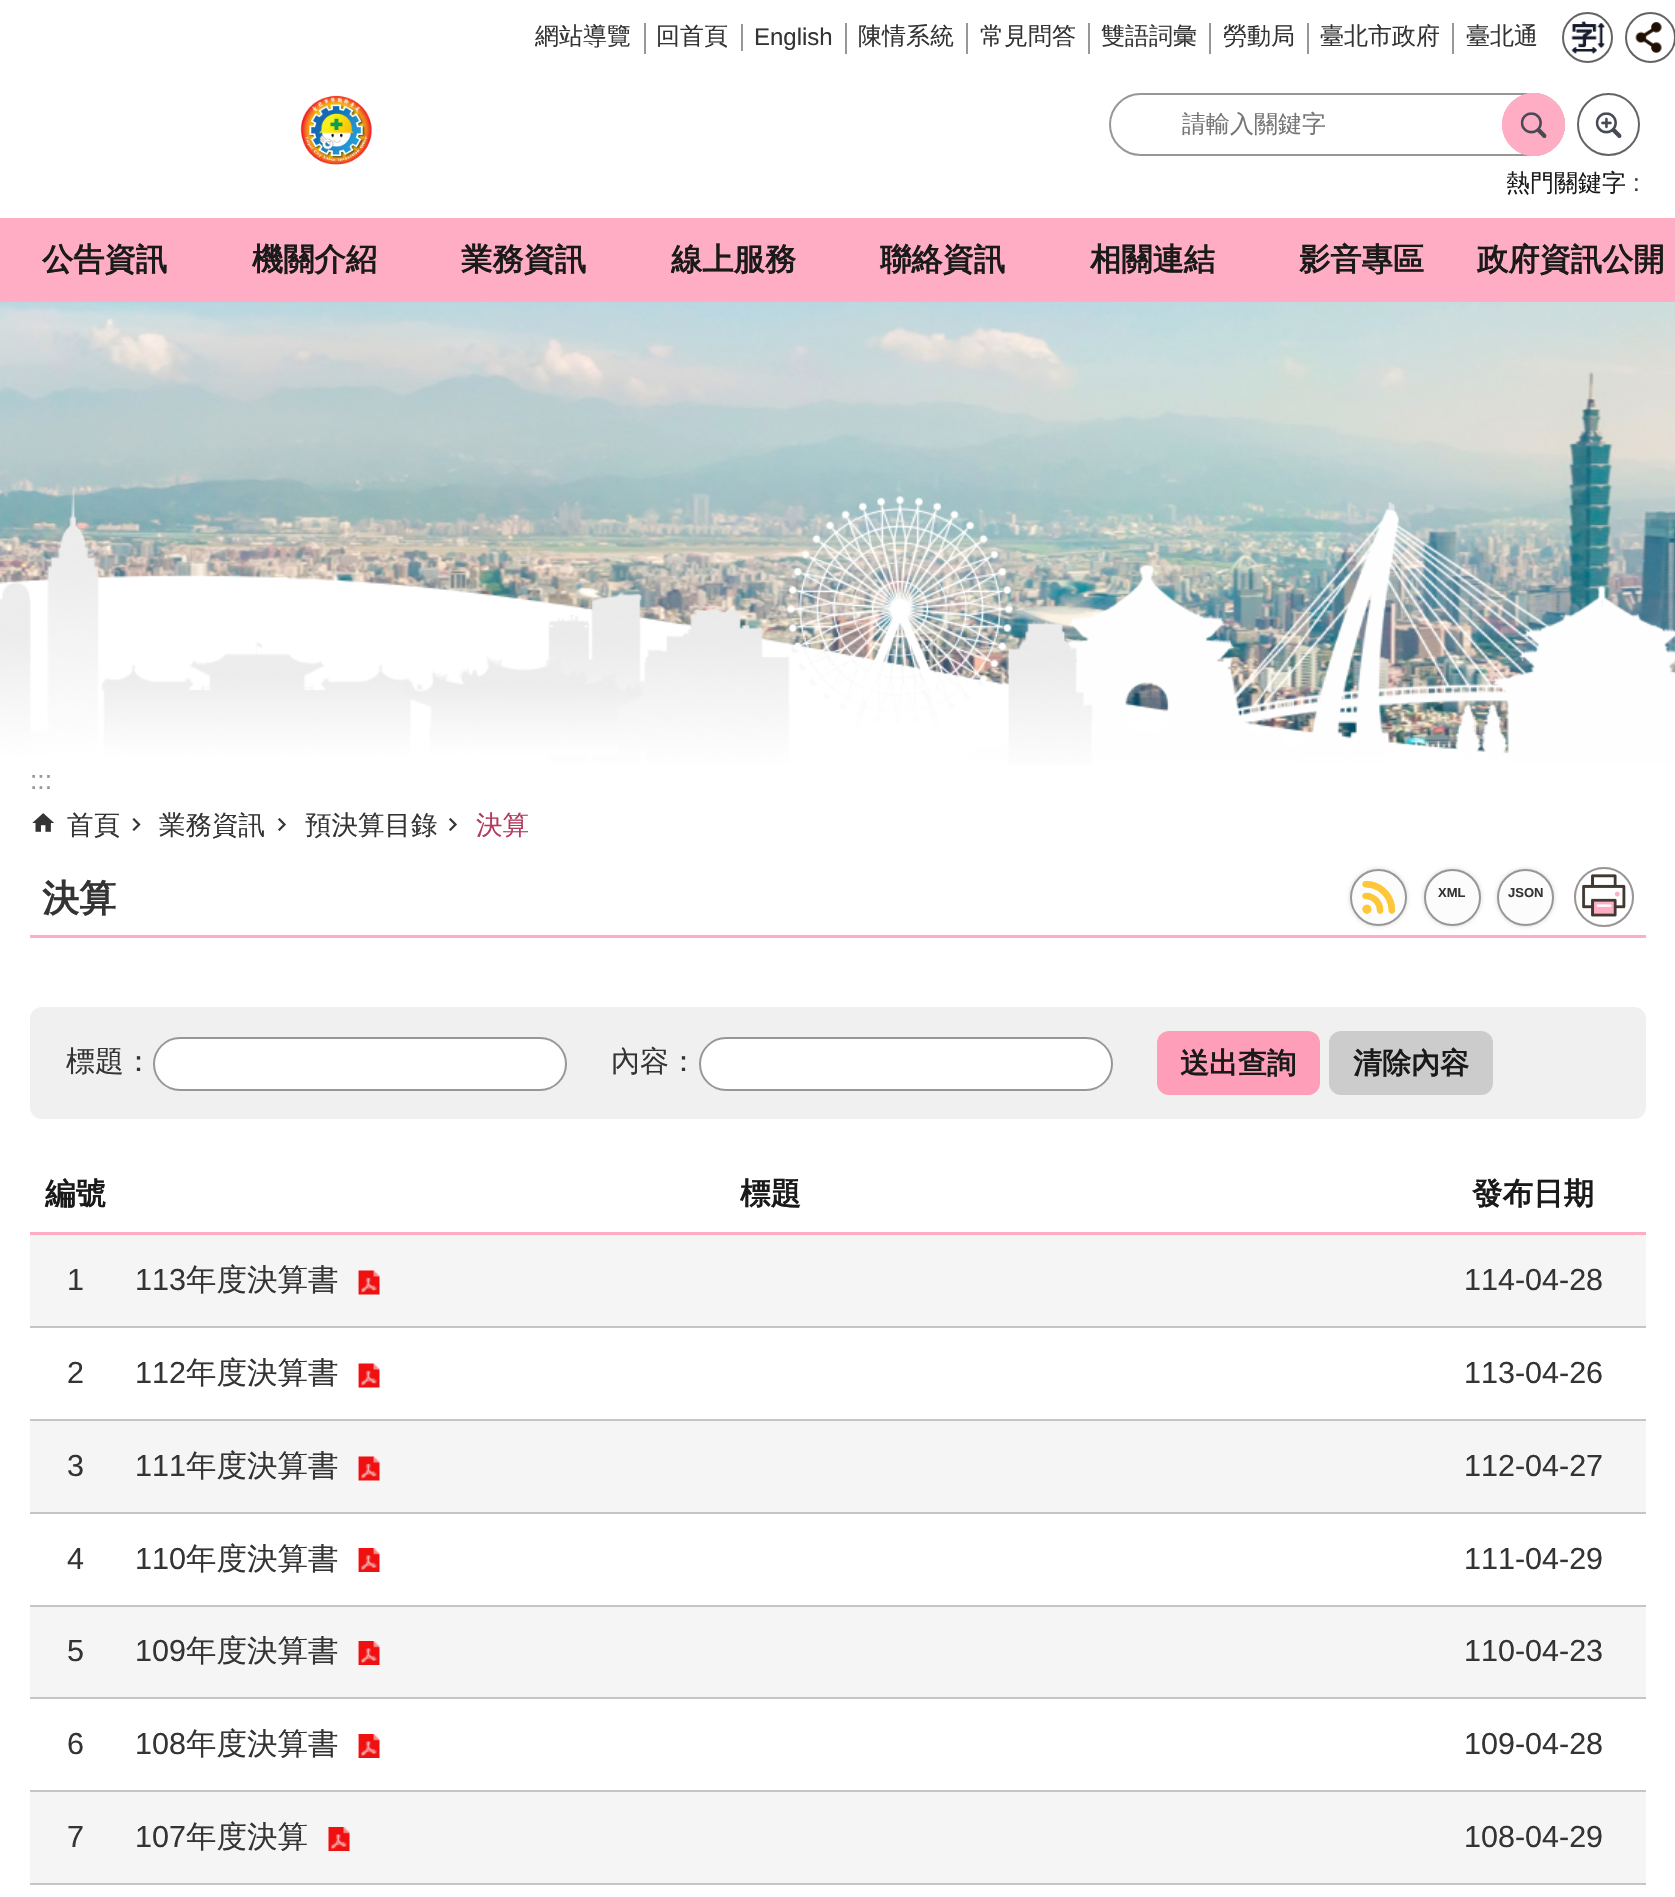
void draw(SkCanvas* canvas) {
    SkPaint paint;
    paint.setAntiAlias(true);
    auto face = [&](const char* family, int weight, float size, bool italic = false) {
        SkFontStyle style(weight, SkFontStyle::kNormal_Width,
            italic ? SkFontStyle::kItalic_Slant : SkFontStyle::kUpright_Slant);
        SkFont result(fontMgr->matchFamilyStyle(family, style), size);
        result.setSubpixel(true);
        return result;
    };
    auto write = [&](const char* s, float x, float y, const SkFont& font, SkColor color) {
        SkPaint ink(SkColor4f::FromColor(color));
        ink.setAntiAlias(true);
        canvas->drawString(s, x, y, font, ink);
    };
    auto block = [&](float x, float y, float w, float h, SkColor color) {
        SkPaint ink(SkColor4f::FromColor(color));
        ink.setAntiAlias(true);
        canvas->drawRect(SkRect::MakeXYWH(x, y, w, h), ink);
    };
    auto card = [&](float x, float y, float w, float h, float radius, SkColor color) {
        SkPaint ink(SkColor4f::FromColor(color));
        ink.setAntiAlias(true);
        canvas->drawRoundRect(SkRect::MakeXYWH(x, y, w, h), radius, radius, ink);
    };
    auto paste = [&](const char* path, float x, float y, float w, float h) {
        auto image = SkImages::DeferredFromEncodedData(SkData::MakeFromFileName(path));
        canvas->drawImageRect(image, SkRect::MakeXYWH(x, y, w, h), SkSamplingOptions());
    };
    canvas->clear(SK_ColorWHITE);
    paste("pic1.png", 0, 302, 1675, 452);
    auto kFont1 = face("WenQuanYi Zen Hei", 500, 24);
    write("網站導覽", 535, 44, kFont1, SkColorSetRGB(52, 52, 52));
    block(644, 23, 2, 31, SkColorSetRGB(151, 151, 151));
    write("回首頁", 656, 44, kFont1, SkColorSetRGB(52, 52, 52));
    block(741, 24, 2, 27, SkColorSetRGB(151, 151, 151));
    auto kFont2 = face("Liberation Sans", 400, 24);
    write("English", 754, 45, kFont2, SkColorSetRGB(52, 52, 52));
    block(845, 23, 2, 31, SkColorSetRGB(151, 151, 151));
    write("陳情系統", 858, 44, kFont1, SkColorSetRGB(52, 52, 52));
    block(966, 23, 2, 31, SkColorSetRGB(151, 151, 151));
    write("常見問答", 980, 44, kFont1, SkColorSetRGB(52, 52, 52));
    block(1088, 23, 2, 31, SkColorSetRGB(151, 151, 151));
    write("雙語詞彙", 1101, 44, kFont1, SkColorSetRGB(52, 52, 52));
    block(1209, 23, 2, 31, SkColorSetRGB(151, 151, 151));
    write("勞動局", 1223, 44, kFont1, SkColorSetRGB(52, 52, 52));
    block(1307, 23, 2, 31, SkColorSetRGB(151, 151, 151));
    write("臺北市政府", 1320, 44, kFont1, SkColorSetRGB(52, 52, 52));
    block(1452, 23, 2, 31, SkColorSetRGB(151, 151, 151));
    write("臺北通", 1466, 44, kFont1, SkColorSetRGB(52, 52, 52));
    paste("pic2.png", 1571, 21, 34, 33);
    paint.setStyle(SkPaint::kStroke_Style);
    paint.setStrokeWidth(2);
    paint.setColor(SkColorSetRGB(100, 100, 100));
    canvas->drawCircle(1587.5f, 37.5f, 24.5f, paint);
    paste("pic3.png", 1635, 22, 27, 31);
    canvas->drawCircle(1650.5f, 37.5f, 24.5f, paint);
    paste("pic4.png", 300, 95, 72, 70);
    paint.setColor(SkColorSetRGB(151, 151, 151));
    canvas->drawRoundRect(SkRect::MakeXYWH(1110, 94, 454, 61), 30.5f, 30.5f, paint);
    write("請輸入關鍵字", 1182, 132, kFont1, SkColorSetRGB(117, 117, 117));
    paint.setStyle(SkPaint::kFill_Style);
    paint.setColor(SkColorSetRGB(255, 173, 196));
    canvas->drawCircle(1533.5f, 124.5f, 31.5f, paint);
    paste("pic5.png", 1520, 112, 27, 27);
    paint.setStyle(SkPaint::kStroke_Style);
    canvas->drawCircle(1533.5f, 124.5f, 30.5f, paint);
    paste("pic6.png", 1595, 112, 27, 27);
    paint.setColor(SkColorSetRGB(100, 100, 100));
    canvas->drawCircle(1608.5f, 124.5f, 30.5f, paint);
    write("熱門關鍵字", 1506, 191, kFont1, SkColorSetRGB(26, 26, 26));
    write(":", 1633, 191, kFont2, SkColorSetRGB(52, 52, 52));
    block(0, 218, 1675, 84, SkColorSetRGB(255, 173, 196));
    auto kFont3 = face("WenQuanYi Zen Hei", 700, 31.25f);
    write("公告資訊", 42, 270, kFont3, SkColorSetRGB(26, 26, 26));
    write("機關介紹", 252, 270, kFont3, SkColorSetRGB(26, 26, 26));
    write("業務資訊", 461, 270, kFont3, SkColorSetRGB(26, 26, 26));
    write("線上服務", 671, 270, kFont3, SkColorSetRGB(26, 26, 26));
    write("聯絡資訊", 880, 270, kFont3, SkColorSetRGB(26, 26, 26));
    write("相關連結", 1090, 270, kFont3, SkColorSetRGB(26, 26, 26));
    write("影音專區", 1299, 270, kFont3, SkColorSetRGB(26, 26, 26));
    write("政府資訊公開", 1477, 270, kFont3, SkColorSetRGB(26, 26, 26));
    paste("pic7.png", 0, 486, 1675, 279);
    paste("pic8.png", 787, 496, 226, 199);
    paste("pic9.png", 864, 616, 72, 84);
    auto kFont4 = face("Liberation Sans", 400, 26.5f);
    write(":::", 30, 789, kFont4, SkColorSetRGB(151, 151, 151));
    paste("pic10.png", 32, 813, 22, 19);
    auto kFont5 = face("WenQuanYi Zen Hei", 500, 26.5f);
    write("首頁", 67, 834, kFont5, SkColorSetRGB(52, 52, 52));
    paste("pic11.png", 132, 818, 9, 13);
    write("業務資訊", 159, 834, kFont5, SkColorSetRGB(52, 52, 52));
    paste("pic12.png", 278, 818, 8, 13);
    write("預決算目錄", 305, 834, kFont5, SkColorSetRGB(52, 52, 52));
    paste("pic12.png", 449, 818, 8, 13);
    write("決算", 476, 834, kFont5, SkColorSetRGB(181, 58, 95));
    block(30, 935, 1616, 3, SkColorSetRGB(255, 173, 196));
    auto kFont6 = face("WenQuanYi Zen Hei", 700, 37);
    write("決算", 42, 911, kFont6, SkColorSetRGB(52, 52, 52));
    paint.setStyle(SkPaint::kFill_Style);
    paint.setColor(SkColorSetRGB(217, 214, 210));
    paint.setMaskFilter(SkMaskFilter::MakeBlur(kNormal_SkBlurStyle, 2));
    canvas->drawRoundRect(SkRect::MakeXYWH(1350, 869, 57, 57), 28.5f, 28.5f, paint);
    paint.setMaskFilter(nullptr);
    paint.setColor(SkColorSetRGB(252, 252, 252));
    canvas->drawCircle(1378.5f, 897.5f, 28.5f, paint);
    paste("pic13.png", 1362, 881, 34, 33);
    paint.setStyle(SkPaint::kStroke_Style);
    paint.setColor(SkColorSetRGB(151, 151, 151));
    canvas->drawCircle(1378.5f, 897.5f, 27.5f, paint);
    paint.setStyle(SkPaint::kFill_Style);
    paint.setColor(SkColorSetRGB(217, 214, 210));
    paint.setMaskFilter(SkMaskFilter::MakeBlur(kNormal_SkBlurStyle, 2));
    canvas->drawRoundRect(SkRect::MakeXYWH(1424, 869, 57, 57), 28.5f, 28.5f, paint);
    paint.setMaskFilter(nullptr);
    paint.setColor(SkColorSetRGB(252, 252, 252));
    canvas->drawCircle(1452.5f, 897.5f, 27.5f, paint);
    paint.setStyle(SkPaint::kStroke_Style);
    paint.setColor(SkColorSetRGB(151, 151, 151));
    canvas->drawCircle(1452.5f, 897.5f, 27.5f, paint);
    auto kFont7 = face("Liberation Sans", 700, 13);
    write("XML", 1438, 897, kFont7, SkColorSetRGB(52, 52, 52));
    paint.setStyle(SkPaint::kFill_Style);
    paint.setColor(SkColorSetRGB(217, 214, 210));
    paint.setMaskFilter(SkMaskFilter::MakeBlur(kNormal_SkBlurStyle, 2));
    canvas->drawRoundRect(SkRect::MakeXYWH(1497, 869, 57, 57), 28.5f, 28.5f, paint);
    paint.setMaskFilter(nullptr);
    paint.setColor(SkColorSetRGB(252, 252, 252));
    canvas->drawCircle(1525.5f, 897.5f, 27.5f, paint);
    paint.setStyle(SkPaint::kStroke_Style);
    paint.setColor(SkColorSetRGB(151, 151, 151));
    canvas->drawCircle(1525.5f, 897.5f, 27.5f, paint);
    write("JSON", 1508, 897, kFont7, SkColorSetRGB(52, 52, 52));
    paint.setStyle(SkPaint::kFill_Style);
    paint.setColor(SkColorSetRGB(255, 173, 196));
    canvas->drawCircle(1604, 897, 30, paint);
    paste("pic14.png", 1575, 868, 57, 58);
    paint.setStyle(SkPaint::kStroke_Style);
    paint.setColor(SkColorSetRGB(151, 151, 151));
    canvas->drawCircle(1604, 897, 29, paint);
    card(30, 1007, 1616, 112, 12, SkColorSetRGB(240, 240, 240));
    auto kFont8 = face("WenQuanYi Zen Hei", 500, 29);
    write("標題：", 66, 1071, kFont8, SkColorSetRGB(52, 52, 52));
    paint.setStyle(SkPaint::kFill_Style);
    paint.setColor(SK_ColorWHITE);
    canvas->drawRoundRect(SkRect::MakeXYWH(154, 1038, 412, 52), 26, 26, paint);
    paint.setStyle(SkPaint::kStroke_Style);
    paint.setColor(SkColorSetRGB(151, 151, 151));
    canvas->drawRoundRect(SkRect::MakeXYWH(154, 1038, 412, 52), 26, 26, paint);
    write("內容：", 611, 1071, kFont8, SkColorSetRGB(52, 52, 52));
    paint.setStyle(SkPaint::kFill_Style);
    paint.setColor(SK_ColorWHITE);
    canvas->drawRoundRect(SkRect::MakeXYWH(700, 1038, 412, 52), 26, 26, paint);
    paint.setStyle(SkPaint::kStroke_Style);
    paint.setColor(SkColorSetRGB(151, 151, 151));
    canvas->drawRoundRect(SkRect::MakeXYWH(700, 1038, 412, 52), 26, 26, paint);
    card(1157, 1031, 163, 64, 12, SkColorSetRGB(255, 158, 185));
    auto kFont9 = face("WenQuanYi Zen Hei", 700, 29);
    write("送出查詢", 1180, 1073, kFont9, SkColorSetRGB(26, 26, 26));
    card(1329, 1031, 164, 64, 12, SkColorSetRGB(204, 204, 204));
    write("清除內容", 1353, 1073, kFont9, SkColorSetRGB(26, 26, 26));
    block(30, 1232, 1616, 3, SkColorSetRGB(255, 173, 196));
    auto kFont10 = face("WenQuanYi Zen Hei", 700, 30.5f);
    write("編號", 45, 1204, kFont10, SkColorSetRGB(26, 26, 26));
    write("標題", 740, 1204, kFont10, SkColorSetRGB(26, 26, 26));
    write("發布日期", 1472, 1204, kFont10, SkColorSetRGB(26, 26, 26));
    block(30, 1235, 1616, 91, SkColorSetRGB(245, 245, 245));
    block(30, 1326, 1616, 2, SkColorSetRGB(197, 197, 197));
    auto kFont11 = face("Liberation Sans", 400, 30.5f);
    write("1", 67, 1290, kFont11, SkColorSetRGB(52, 52, 52));
    write("113", 135, 1290, kFont11, SkColorSetRGB(52, 52, 52));
    auto kFont12 = face("WenQuanYi Zen Hei", 500, 30.5f);
    write("年度決算書", 186, 1290, kFont12, SkColorSetRGB(52, 52, 52));
    paste("pic15.png", 358, 1270, 22, 25);
    write("114-04-28", 1464, 1290, kFont11, SkColorSetRGB(52, 52, 52));
    block(30, 1419, 1616, 2, SkColorSetRGB(197, 197, 197));
    write("2", 67, 1383, kFont11, SkColorSetRGB(52, 52, 52));
    write("112", 135, 1383, kFont11, SkColorSetRGB(52, 52, 52));
    write("年度決算書", 186, 1383, kFont12, SkColorSetRGB(52, 52, 52));
    paste("pic16.png", 358, 1363, 22, 25);
    write("113-04-26", 1464, 1383, kFont11, SkColorSetRGB(52, 52, 52));
    block(30, 1421, 1616, 91, SkColorSetRGB(245, 245, 245));
    block(30, 1512, 1616, 2, SkColorSetRGB(197, 197, 197));
    write("3", 67, 1476, kFont11, SkColorSetRGB(52, 52, 52));
    write("111", 135, 1476, kFont11, SkColorSetRGB(52, 52, 52));
    write("年度決算書", 186, 1476, kFont12, SkColorSetRGB(52, 52, 52));
    paste("pic15.png", 358, 1456, 22, 25);
    write("112-04-27", 1464, 1476, kFont11, SkColorSetRGB(52, 52, 52));
    block(30, 1605, 1616, 2, SkColorSetRGB(197, 197, 197));
    write("4", 67, 1569, kFont11, SkColorSetRGB(52, 52, 52));
    write("110", 135, 1569, kFont11, SkColorSetRGB(52, 52, 52));
    write("年度決算書", 186, 1569, kFont12, SkColorSetRGB(52, 52, 52));
    paste("pic17.png", 358, 1548, 22, 24);
    write("111-04-29", 1464, 1569, kFont11, SkColorSetRGB(52, 52, 52));
    block(30, 1607, 1616, 90, SkColorSetRGB(245, 245, 245));
    block(30, 1697, 1616, 2, SkColorSetRGB(197, 197, 197));
    write("5", 67, 1661, kFont11, SkColorSetRGB(52, 52, 52));
    write("109", 135, 1661, kFont11, SkColorSetRGB(52, 52, 52));
    write("年度決算書", 186, 1661, kFont12, SkColorSetRGB(52, 52, 52));
    paste("pic18.png", 358, 1641, 22, 24);
    write("110-04-23", 1464, 1661, kFont11, SkColorSetRGB(52, 52, 52));
    block(30, 1790, 1616, 2, SkColorSetRGB(197, 197, 197));
    write("6", 67, 1754, kFont11, SkColorSetRGB(52, 52, 52));
    write("108", 135, 1754, kFont11, SkColorSetRGB(52, 52, 52));
    write("年度決算書", 186, 1754, kFont12, SkColorSetRGB(52, 52, 52));
    paste("pic17.png", 358, 1734, 22, 24);
    write("109-04-28", 1464, 1754, kFont11, SkColorSetRGB(52, 52, 52));
    block(30, 1792, 1616, 91, SkColorSetRGB(245, 245, 245));
    block(30, 1883, 1616, 2, SkColorSetRGB(197, 197, 197));
    write("7", 67, 1847, kFont11, SkColorSetRGB(52, 52, 52));
    write("107", 135, 1847, kFont11, SkColorSetRGB(52, 52, 52));
    write("年度決算", 186, 1847, kFont12, SkColorSetRGB(52, 52, 52));
    paste("pic19.png", 328, 1827, 22, 24);
    write("108-04-29", 1464, 1847, kFont11, SkColorSetRGB(52, 52, 52));
}
